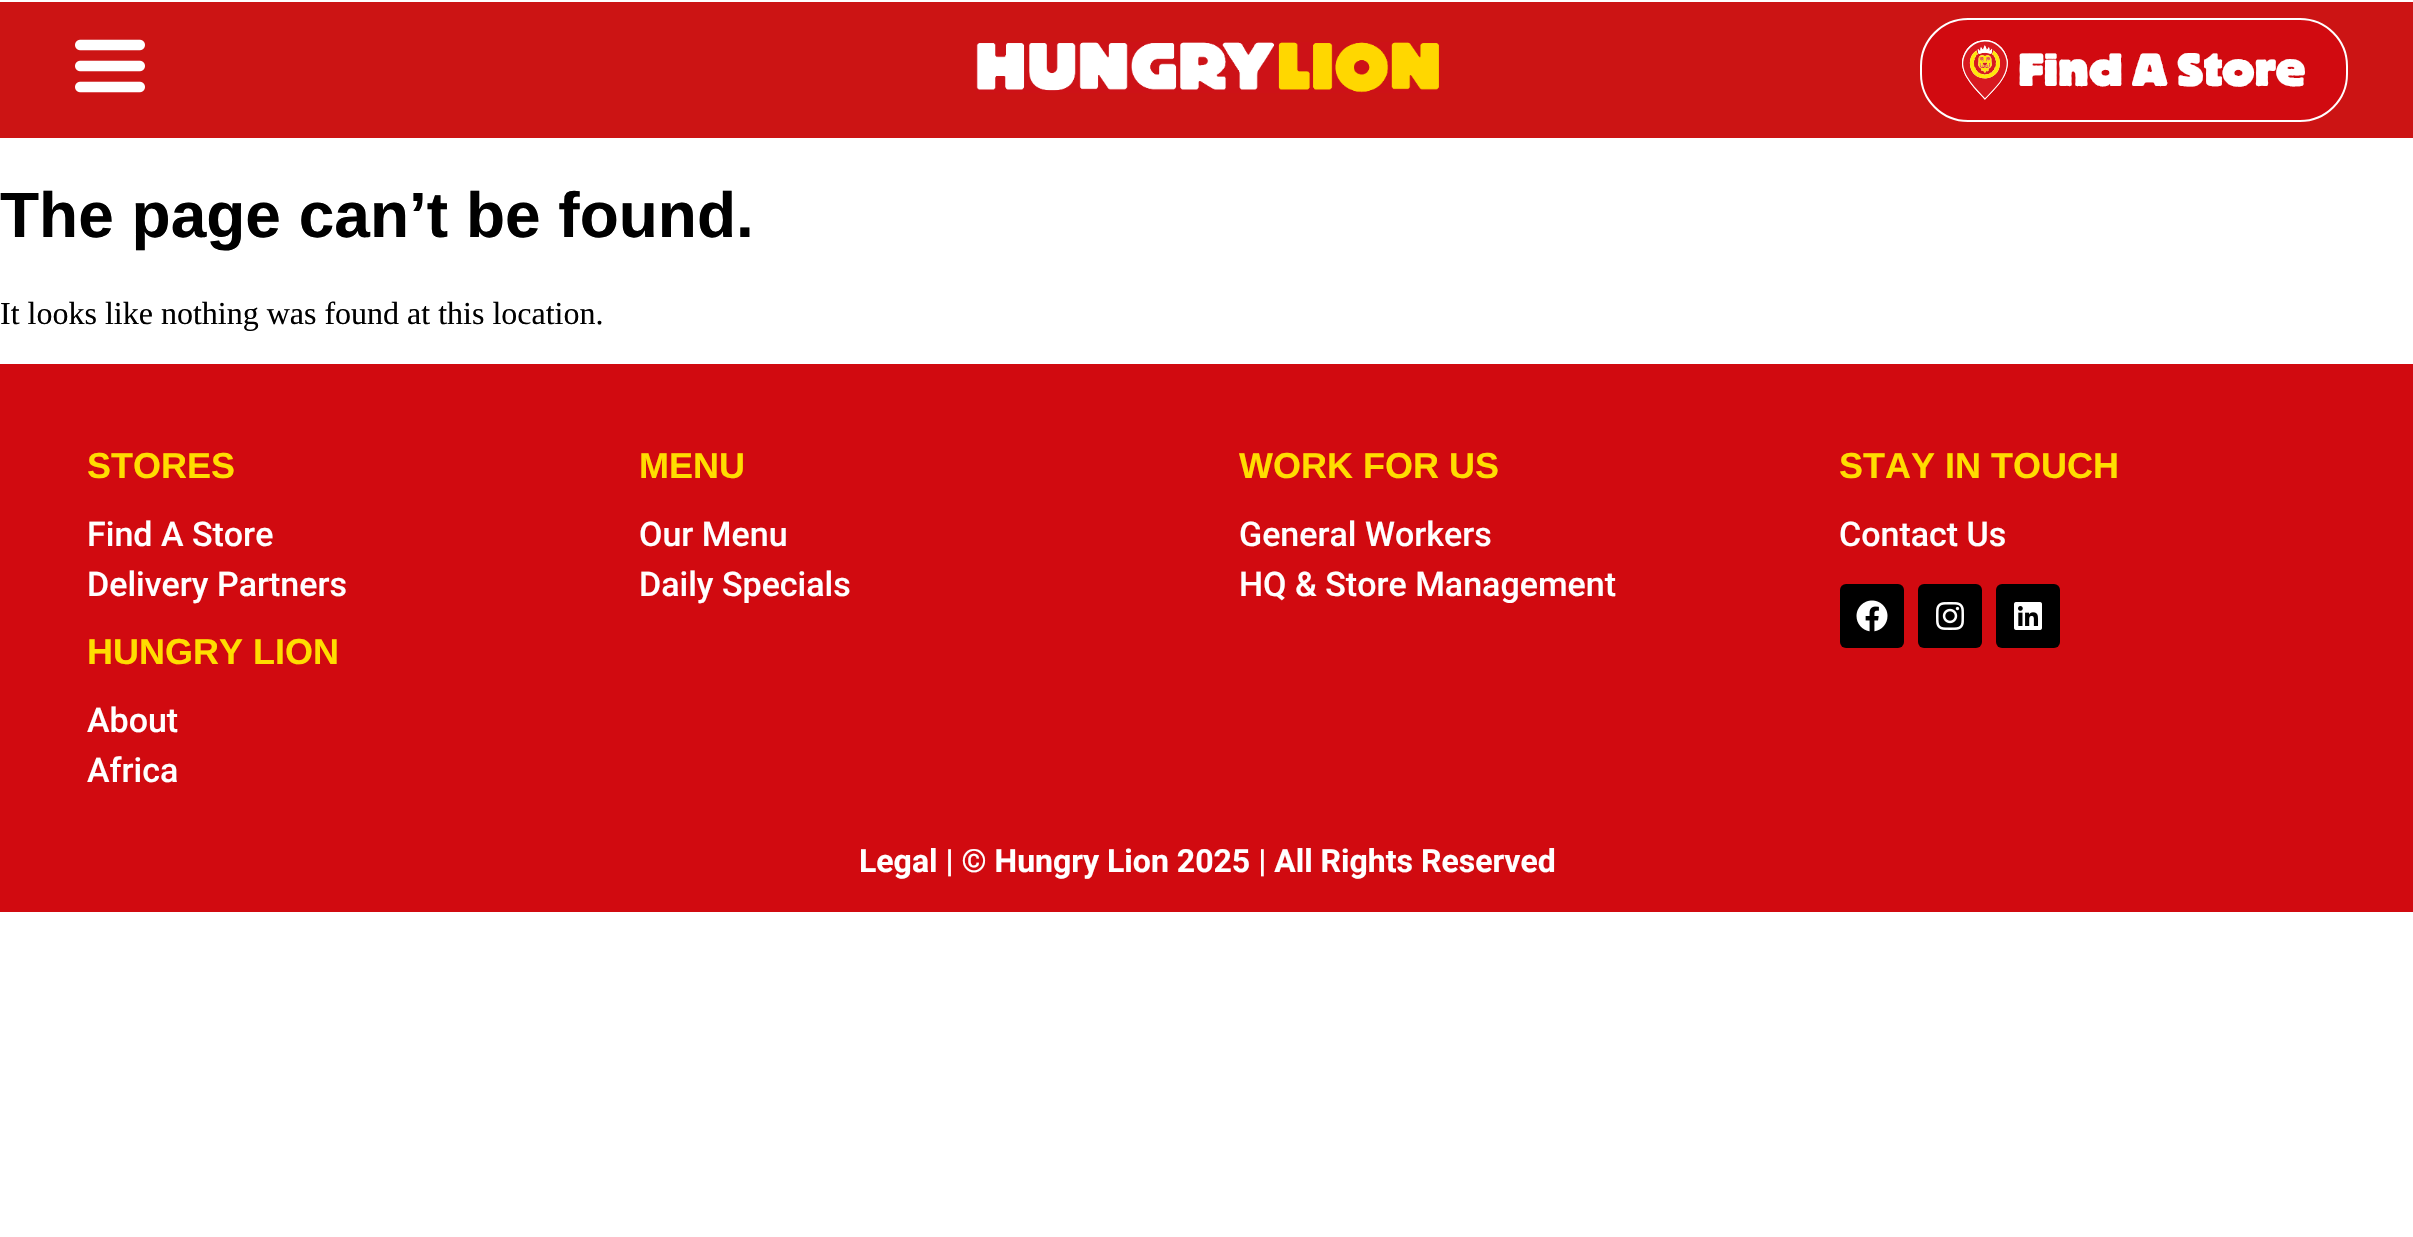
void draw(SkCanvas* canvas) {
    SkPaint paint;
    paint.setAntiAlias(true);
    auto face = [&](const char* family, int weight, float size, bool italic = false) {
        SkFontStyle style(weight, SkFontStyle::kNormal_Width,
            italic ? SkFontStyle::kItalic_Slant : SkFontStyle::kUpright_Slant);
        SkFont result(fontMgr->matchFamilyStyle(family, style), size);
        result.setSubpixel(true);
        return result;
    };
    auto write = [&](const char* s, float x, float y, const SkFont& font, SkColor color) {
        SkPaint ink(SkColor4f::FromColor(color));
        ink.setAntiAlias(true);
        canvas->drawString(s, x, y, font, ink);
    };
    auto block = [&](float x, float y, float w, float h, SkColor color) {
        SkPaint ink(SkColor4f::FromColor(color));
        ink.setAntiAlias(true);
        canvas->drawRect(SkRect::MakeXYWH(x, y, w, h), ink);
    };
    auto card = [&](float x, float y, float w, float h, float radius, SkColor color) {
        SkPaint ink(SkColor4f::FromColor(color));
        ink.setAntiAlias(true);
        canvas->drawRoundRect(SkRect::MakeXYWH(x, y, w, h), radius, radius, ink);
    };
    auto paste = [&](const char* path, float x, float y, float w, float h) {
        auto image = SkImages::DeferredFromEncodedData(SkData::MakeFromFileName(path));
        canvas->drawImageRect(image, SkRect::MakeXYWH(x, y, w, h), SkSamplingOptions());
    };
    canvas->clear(SK_ColorWHITE);
    block(0, 2, 2413, 136, SkColorSetRGB(204, 20, 20));
    paste("pic1.png", 75, 39, 70, 54);
    paste("pic2.png", 976, 42, 463, 51);
    paint.setColor(SkColorSetRGB(209, 10, 16));
    canvas->drawRoundRect(SkRect::MakeXYWH(1921, 19, 426, 102), 47, 47, paint);
    paint.setStyle(SkPaint::kStroke_Style);
    paint.setStrokeWidth(2);
    paint.setColor(SK_ColorWHITE);
    canvas->drawRoundRect(SkRect::MakeXYWH(1921, 19, 426, 102), 47, 47, paint);
    paste("pic3.png", 1962, 40, 46, 60);
    auto kFont1 = face("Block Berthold", 900, 46);
    write("Find A Store", 2018, 86, kFont1, SK_ColorWHITE);
    auto kFont2 = face("Liberation Sans", 700, 64);
    write("The page can’t be found.", 0, 237, kFont2, SK_ColorBLACK);
    auto kFont3 = face("Liberation Serif", 400, 32);
    write("It looks like nothing was found at this location.", 0, 324, kFont3, SK_ColorBLACK);
    block(0, 364, 2413, 548, SkColorSetRGB(209, 10, 16));
    auto kFont4 = face("Liberation Sans", 700, 36);
    write("STORES", 87, 478, kFont4, SkColorSetRGB(255, 221, 0));
    auto kFont5 = face("Roboto", 500, 34);
    write("Find A Store", 87, 546, kFont5, SK_ColorWHITE);
    write("Delivery Partners", 87, 596, kFont5, SK_ColorWHITE);
    write("HUNGRY LION", 87, 664, kFont4, SkColorSetRGB(255, 221, 0));
    write("About", 87, 732, kFont5, SK_ColorWHITE);
    write("Africa", 87, 782, kFont5, SK_ColorWHITE);
    write("MENU", 639, 478, kFont4, SkColorSetRGB(255, 221, 0));
    write("Our Menu", 639, 546, kFont5, SK_ColorWHITE);
    write("Daily Specials", 639, 596, kFont5, SK_ColorWHITE);
    write("WORK FOR US", 1239, 478, kFont4, SkColorSetRGB(255, 221, 0));
    write("General Workers", 1239, 546, kFont5, SK_ColorWHITE);
    write("HQ & Store Management", 1239, 596, kFont5, SK_ColorWHITE);
    write("STAY IN TOUCH", 1839, 478, kFont4, SkColorSetRGB(255, 221, 0));
    write("Contact Us", 1839, 546, kFont5, SK_ColorWHITE);
    card(1840, 584, 64, 64, 6, SK_ColorBLACK);
    paste("pic4.png", 1856, 600, 32, 32);
    card(1918, 584, 64, 64, 6, SK_ColorBLACK);
    paste("pic5.png", 1936, 602, 28, 28);
    card(1996, 584, 64, 64, 6, SK_ColorBLACK);
    paste("pic6.png", 2014, 602, 28, 28);
    auto kFont6 = face("Roboto", 700, 32);
    write("Legal | © Hungry Lion 2025 | All Rights Reserved", 859, 872, kFont6, SK_ColorWHITE);
}
